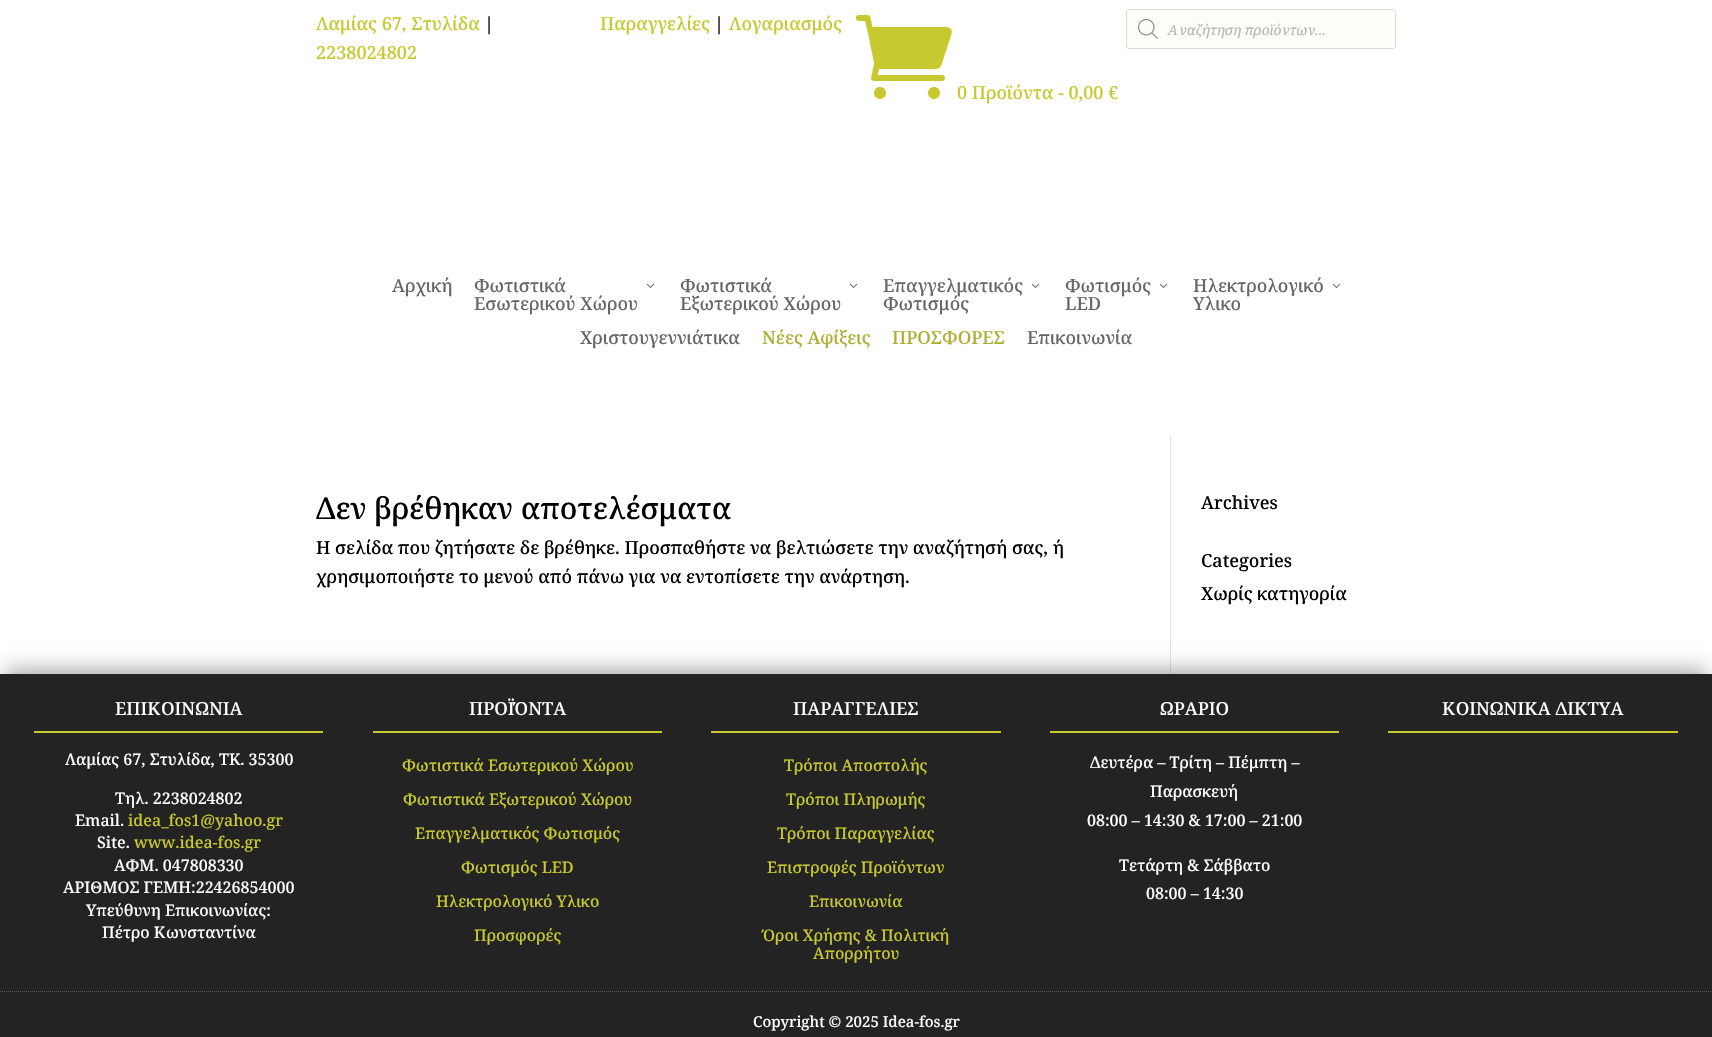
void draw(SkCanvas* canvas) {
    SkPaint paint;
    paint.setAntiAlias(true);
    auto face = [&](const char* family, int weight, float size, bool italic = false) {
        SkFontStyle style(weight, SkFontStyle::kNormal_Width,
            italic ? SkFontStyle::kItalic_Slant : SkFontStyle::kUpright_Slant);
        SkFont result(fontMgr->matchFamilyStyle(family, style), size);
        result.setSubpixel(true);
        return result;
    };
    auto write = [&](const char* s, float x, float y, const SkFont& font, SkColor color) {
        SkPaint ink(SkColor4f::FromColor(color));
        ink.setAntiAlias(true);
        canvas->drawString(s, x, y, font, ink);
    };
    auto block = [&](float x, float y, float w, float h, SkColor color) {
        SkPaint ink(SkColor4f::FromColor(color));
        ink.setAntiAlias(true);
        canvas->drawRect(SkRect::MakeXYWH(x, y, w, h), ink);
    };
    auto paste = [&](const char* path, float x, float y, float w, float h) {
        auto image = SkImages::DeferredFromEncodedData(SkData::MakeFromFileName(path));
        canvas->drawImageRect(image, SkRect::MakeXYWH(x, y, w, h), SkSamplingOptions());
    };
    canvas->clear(SK_ColorWHITE);
    auto kFont1 = face("Noto Serif", 500, 18);
    write("Λαμίας 67, Στυλίδα", 316, 30, kFont1, SkColorSetRGB(200, 201, 47));
    write("|", 484, 30, kFont1, SK_ColorBLACK);
    write("2238024802", 316, 59, kFont1, SkColorSetRGB(200, 201, 47));
    write("Παραγγελίες", 600, 30, kFont1, SkColorSetRGB(200, 201, 47));
    write("|", 714, 30, kFont1, SK_ColorBLACK);
    write("Λογαριασμός", 729, 30, kFont1, SkColorSetRGB(200, 201, 47));
    paint.setColor(SkColorSetRGB(252, 255, 247));
    canvas->drawRoundRect(SkRect::MakeXYWH(1126.5f, 9.5f, 269, 39), 2.5f, 2.5f, paint);
    paint.setStyle(SkPaint::kStroke_Style);
    paint.setStrokeWidth(1);
    paint.setColor(SkColorSetRGB(221, 221, 221));
    canvas->drawRoundRect(SkRect::MakeXYWH(1126.5f, 9.5f, 269, 39), 2.5f, 2.5f, paint);
    paste("pic1.png", 1138, 19, 20, 20);
    auto kFont2 = face("Noto Serif", 400, 14, true);
    write("Αναζήτηση προϊόντων...", 1167, 35, kFont2, SkColorSetRGB(179, 182, 176));
    paste("pic2.png", 855, 15, 97, 84);
    write("0 Προϊόντα - 0,00 €", 957, 99, kFont1, SkColorSetRGB(200, 201, 47));
    write("Αρχική", 392, 292, kFont1, SkColorSetRGB(102, 102, 102));
    write("Φωτιστικά", 474, 292, kFont1, SkColorSetRGB(102, 102, 102));
    paste("pic3.png", 646, 283, 9, 5);
    write("Εσωτερικού Χώρου", 474, 310, kFont1, SkColorSetRGB(102, 102, 102));
    write("Φωτιστικά", 680, 292, kFont1, SkColorSetRGB(102, 102, 102));
    paste("pic3.png", 849, 283, 9, 5);
    write("Εξωτερικού Χώρου", 680, 310, kFont1, SkColorSetRGB(102, 102, 102));
    write("Επαγγελματικός", 883, 292, kFont1, SkColorSetRGB(102, 102, 102));
    paste("pic3.png", 1031, 283, 9, 5);
    write("Φωτισμός", 883, 310, kFont1, SkColorSetRGB(102, 102, 102));
    write("Φωτισμός", 1065, 292, kFont1, SkColorSetRGB(102, 102, 102));
    paste("pic3.png", 1159, 283, 9, 5);
    write("LED", 1065, 310, kFont1, SkColorSetRGB(102, 102, 102));
    write("Ηλεκτρολογικό", 1193, 292, kFont1, SkColorSetRGB(102, 102, 102));
    paste("pic3.png", 1332, 283, 9, 5);
    write("Υλικο", 1193, 310, kFont1, SkColorSetRGB(102, 102, 102));
    write("Χριστουγεννιάτικα", 580, 344, kFont1, SkColorSetRGB(102, 102, 102));
    write("Νέες Αφίξεις", 762, 344, kFont1, SkColorSetRGB(173, 174, 50));
    write("ΠΡΟΣΦΟΡΕΣ", 892, 344, kFont1, SkColorSetRGB(173, 174, 50));
    write("Επικοινωνία", 1027, 344, kFont1, SkColorSetRGB(102, 102, 102));
    block(1170, 435, 1, 239, SkColorSetRGB(226, 226, 226));
    auto kFont3 = face("Noto Serif", 500, 30);
    write("Δεν βρέθηκαν αποτελέσματα", 316, 519, kFont3, SK_ColorBLACK);
    write("Η σελίδα που ζητήσατε δε βρέθηκε. Προσπαθήστε να βελτιώσετε την αναζήτησή σας, ή", 316, 554, kFont1, SK_ColorBLACK);
    write("χρησιμοποιήστε το μενού από πάνω για να εντοπίσετε την ανάρτηση.", 316, 583, kFont1, SK_ColorBLACK);
    write("Archives", 1201, 509, kFont1, SK_ColorBLACK);
    write("Categories", 1201, 567, kFont1, SK_ColorBLACK);
    write("Χωρίς κατηγορία", 1201, 600, kFont1, SK_ColorBLACK);
    block(0, 991, 1712, 46, SkColorSetRGB(35, 35, 35));
    paint.setColor(SkColorSetRGB(90, 90, 90));
    paint.setPathEffect(SkDashPathEffect::Make({{1, 1}}, 0));
    canvas->drawPath(SkPathBuilder().moveTo(0, 991.5f).lineTo(1712, 991.5f).detach(), paint);
    paint.setPathEffect(nullptr);
    paint.setStyle(SkPaint::kFill_Style);
    paint.setColor(SkColorSetARGB(77, 0, 0, 0));
    paint.setMaskFilter(SkMaskFilter::MakeBlur(kNormal_SkBlurStyle, 9));
    canvas->drawRect(SkRect::MakeXYWH(6, 668, 1700, 305), paint);
    paint.setMaskFilter(nullptr);
    block(0, 674, 1712, 317, SkColorSetRGB(35, 35, 35));
    block(34, 731, 289, 2, SkColorSetRGB(200, 201, 47));
    write("ΕΠΙΚΟΙΝΩΝΙΑ", 115, 715, kFont1, SK_ColorWHITE);
    auto kFont4 = face("Noto Serif", 500, 16);
    write("Λαμίας 67, Στυλίδα, TK. 35300", 65, 765, kFont4, SK_ColorWHITE);
    write("Τηλ. 2238024802", 115, 804, kFont4, SK_ColorWHITE);
    write("Email.", 75, 826, kFont4, SK_ColorWHITE);
    write("idea_fos1@yahoo.gr", 128, 826, kFont4, SkColorSetRGB(200, 201, 47));
    write("Site.", 97, 848, kFont4, SK_ColorWHITE);
    write("www.idea-fos.gr", 134, 848, kFont4, SkColorSetRGB(200, 201, 47));
    write("ΑΦΜ. 047808330", 114, 871, kFont4, SK_ColorWHITE);
    write("ΑΡΙΘΜΟΣ ΓΕΜΗ:22426854000", 63, 893, kFont4, SK_ColorWHITE);
    write("Υπεύθυνη Επικοινωνίας:", 86, 916, kFont4, SK_ColorWHITE);
    write("Πέτρο Κωνσταντίνα", 102, 938, kFont4, SK_ColorWHITE);
    block(373, 731, 289, 2, SkColorSetRGB(200, 201, 47));
    write("ΠΡΟΪΌΝΤΑ", 469, 715, kFont1, SK_ColorWHITE);
    write("Φωτιστικά Εσωτερικού Χώρου", 402, 771, kFont4, SkColorSetRGB(200, 201, 47));
    write("Φωτιστικά Εξωτερικού Χώρου", 403, 805, kFont4, SkColorSetRGB(200, 201, 47));
    write("Επαγγελματικός Φωτισμός", 415, 839, kFont4, SkColorSetRGB(200, 201, 47));
    write("Φωτισμός LED", 461, 873, kFont4, SkColorSetRGB(200, 201, 47));
    write("Ηλεκτρολογικό Υλικο", 436, 907, kFont4, SkColorSetRGB(200, 201, 47));
    write("Προσφορές", 474, 941, kFont4, SkColorSetRGB(200, 201, 47));
    block(711, 731, 290, 2, SkColorSetRGB(200, 201, 47));
    write("ΠΑΡΑΓΓΕΛΙΕΣ", 793, 715, kFont1, SK_ColorWHITE);
    write("Τρόποι Αποστολής", 784, 771, kFont4, SkColorSetRGB(200, 201, 47));
    write("Τρόποι Πληρωμής", 786, 805, kFont4, SkColorSetRGB(200, 201, 47));
    write("Τρόποι Παραγγελίας", 777, 839, kFont4, SkColorSetRGB(200, 201, 47));
    write("Επιστροφές Προϊόντων", 767, 873, kFont4, SkColorSetRGB(200, 201, 47));
    write("Επικοινωνία", 809, 907, kFont4, SkColorSetRGB(200, 201, 47));
    write("Όροι Χρήσης & Πολιτική", 763, 941, kFont4, SkColorSetRGB(200, 201, 47));
    write("Απορρήτου", 813, 959, kFont4, SkColorSetRGB(200, 201, 47));
    block(1050, 731, 289, 2, SkColorSetRGB(200, 201, 47));
    write("ΩΡΑΡΙΟ", 1160, 715, kFont1, SK_ColorWHITE);
    write("Δευτέρα – Τρίτη – Πέμπτη –", 1090, 768, kFont4, SK_ColorWHITE);
    write("Παρασκευή", 1150, 797, kFont4, SK_ColorWHITE);
    write("08:00 – 14:30 & 17:00 – 21:00", 1087, 826, kFont4, SK_ColorWHITE);
    write("Τετάρτη & Σάββατο", 1119, 871, kFont4, SK_ColorWHITE);
    write("08:00 – 14:30", 1146, 899, kFont4, SK_ColorWHITE);
    block(1388, 731, 290, 2, SkColorSetRGB(200, 201, 47));
    write("ΚΟΙΝΩΝΙΚΑ ΔΙΚΤΥΑ", 1442, 715, kFont1, SK_ColorWHITE);
    auto kFont5 = face("Noto Serif", 500, 15);
    write("Copyright © 2025 Idea-fos.gr", 753, 1027, kFont5, SK_ColorWHITE);
}
